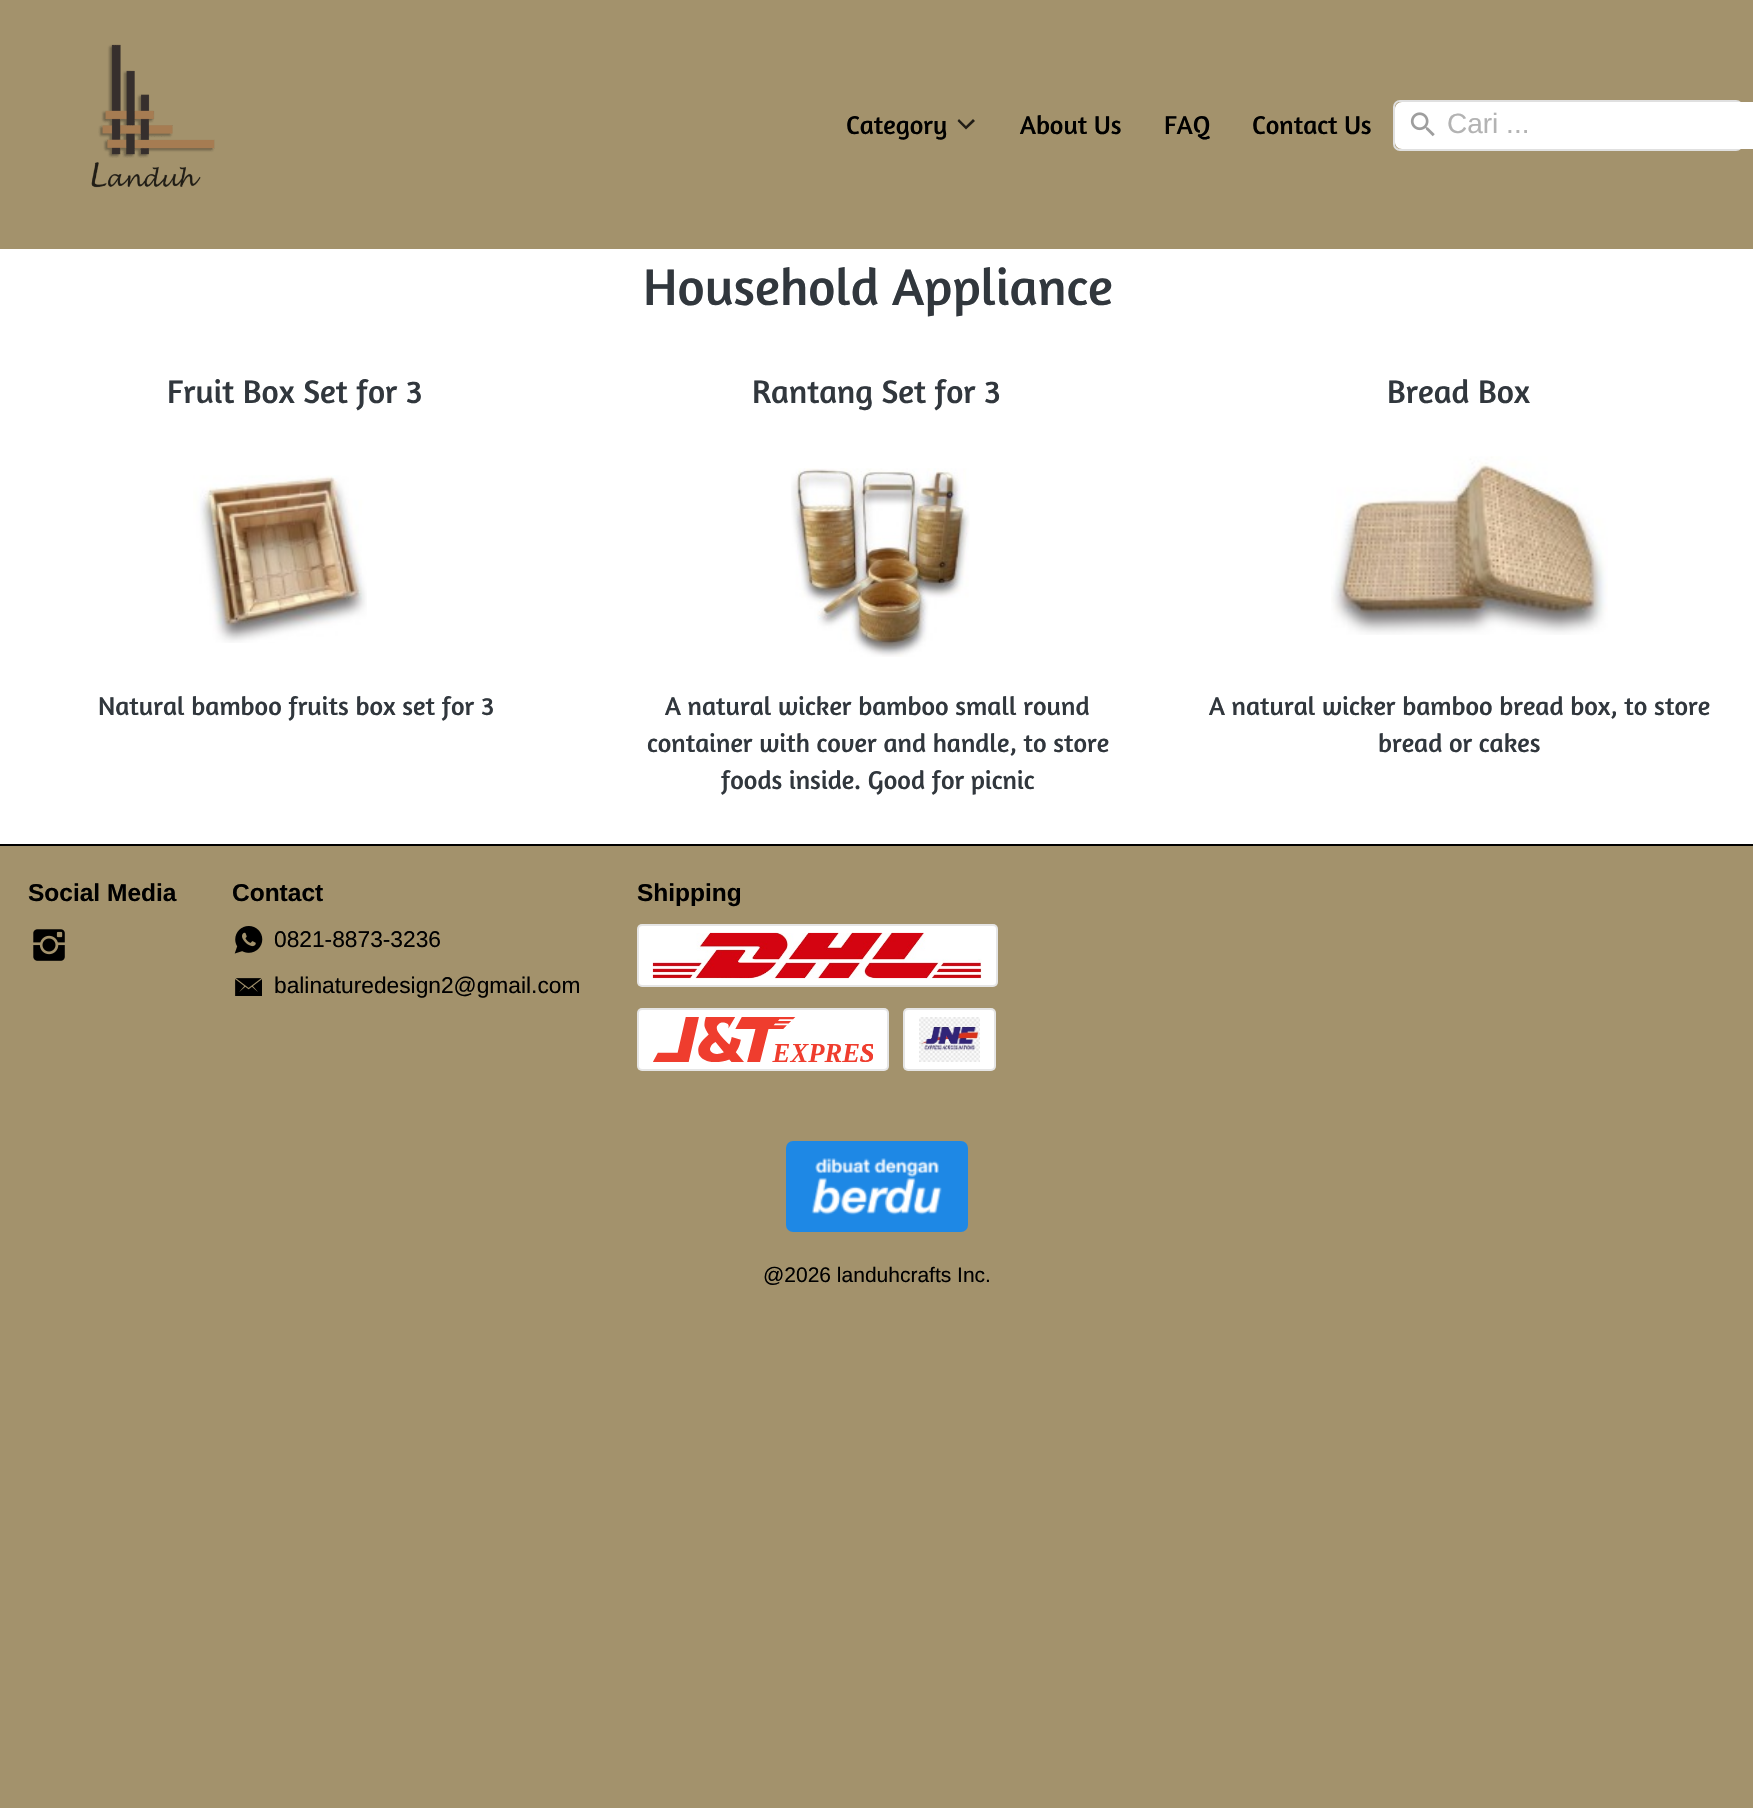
void draw(SkCanvas* canvas) {
    SkPaint paint;
    paint.setAntiAlias(true);
    auto face = [&](const char* family, int weight, float size, bool italic = false) {
        SkFontStyle style(weight, SkFontStyle::kNormal_Width,
            italic ? SkFontStyle::kItalic_Slant : SkFontStyle::kUpright_Slant);
        SkFont result(fontMgr->matchFamilyStyle(family, style), size);
        result.setSubpixel(true);
        return result;
    };
    auto write = [&](const char* s, float x, float y, const SkFont& font, SkColor color) {
        SkPaint ink(SkColor4f::FromColor(color));
        ink.setAntiAlias(true);
        canvas->drawString(s, x, y, font, ink);
    };
    auto block = [&](float x, float y, float w, float h, SkColor color) {
        SkPaint ink(SkColor4f::FromColor(color));
        ink.setAntiAlias(true);
        canvas->drawRect(SkRect::MakeXYWH(x, y, w, h), ink);
    };
    auto card = [&](float x, float y, float w, float h, float radius, SkColor color) {
        SkPaint ink(SkColor4f::FromColor(color));
        ink.setAntiAlias(true);
        canvas->drawRoundRect(SkRect::MakeXYWH(x, y, w, h), radius, radius, ink);
    };
    auto paste = [&](const char* path, float x, float y, float w, float h) {
        auto image = SkImages::DeferredFromEncodedData(SkData::MakeFromFileName(path));
        canvas->drawImageRect(image, SkRect::MakeXYWH(x, y, w, h), SkSamplingOptions());
    };
    canvas->clear(SK_ColorWHITE);
    block(0, 0, 1753, 249, SkColorSetRGB(163, 146, 108));
    paste("pic1.png", 91, 44, 124, 144);
    auto kFont1 = face("Amaranth", 400, 26.25f);
    write("Category", 846, 134, kFont1, SK_ColorBLACK);
    paint.setColor(SkColorSetRGB(33, 29, 22));
    canvas->drawPath(SkPathBuilder().moveTo(959, 119).lineTo(957.5f, 121).lineTo(966, 129.5f).lineTo(975, 121).lineTo(973, 119).lineTo(966, 126).close().detach(), paint);
    write("About Us", 1020, 134, kFont1, SK_ColorBLACK);
    write("FAQ", 1164, 134, kFont1, SK_ColorBLACK);
    write("Contact Us", 1252, 134, kFont1, SK_ColorBLACK);
    paint.setStyle(SkPaint::kStroke_Style);
    paint.setStrokeWidth(2);
    paint.setColor(SkColorSetRGB(224, 224, 224));
    canvas->drawRoundRect(SkRect::MakeXYWH(1394, 101, 348, 49), 6, 6, paint);
    paint.setStyle(SkPaint::kFill_Style);
    paint.setColor(SK_ColorWHITE);
    canvas->drawPath(SkPathBuilder().moveTo(1402, 102).lineTo(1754, 102).lineTo(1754, 149).lineTo(1402, 149).cubicTo(1398, 149, 1395, 146, 1395, 142).lineTo(1395, 109).cubicTo(1395, 105, 1398, 102, 1402, 102).close().detach(), paint);
    paste("pic2.png", 1410, 112, 25, 25);
    auto kFont2 = face("Liberation Sans", 400, 28);
    write("Cari ...", 1447, 133, kFont2, SkColorSetRGB(179, 179, 179));
    auto kFont3 = face("Amaranth", 400, 52.5f);
    write("Household Appliance", 643, 305, kFont3, SkColorSetRGB(49, 55, 61));
    auto kFont4 = face("Amaranth", 400, 33.25f);
    write("Fruit Box Set for 3", 167, 403, kFont4, SkColorSetRGB(49, 55, 61));
    paste("pic3.png", 193, 475, 174, 168);
    write("Natural bamboo fruits box set for 3", 98, 715, kFont1, SkColorSetRGB(49, 55, 61));
    write("Rantang Set for 3", 752, 403, kFont4, SkColorSetRGB(49, 55, 61));
    paste("pic4.png", 791, 468, 179, 189);
    write("A natural wicker bamboo small round", 665, 715, kFont1, SkColorSetRGB(49, 55, 61));
    write("container with cover and handle, to store", 647, 752, kFont1, SkColorSetRGB(49, 55, 61));
    write("foods inside. Good for picnic", 721, 789, kFont1, SkColorSetRGB(49, 55, 61));
    write("Bread Box", 1387, 403, kFont4, SkColorSetRGB(49, 55, 61));
    paste("pic5.png", 1331, 456, 277, 179);
    write("A natural wicker bamboo bread box, to store", 1209, 715, kFont1, SkColorSetRGB(49, 55, 61));
    write("bread or cakes", 1378, 752, kFont1, SkColorSetRGB(49, 55, 61));
    block(0, 846, 1753, 962, SkColorSetRGB(163, 146, 108));
    block(0, 844, 1753, 2, SK_ColorBLACK);
    auto kFont5 = face("Liberation Sans", 700, 24.5f);
    write("Social Media", 28, 901, kFont5, SK_ColorBLACK);
    paste("pic6.png", 33, 929, 32, 32);
    write("Contact", 232, 901, kFont5, SK_ColorBLACK);
    paste("pic7.png", 234, 926, 29, 28);
    auto kFont6 = face("Liberation Sans", 400, 22.75f);
    write("0821-8873-3236", 274, 947, kFont6, SK_ColorBLACK);
    paste("pic8.png", 235, 978, 27, 18);
    write("balinaturedesign2@gmail.com", 274, 993, kFont6, SK_ColorBLACK);
    write("Shipping", 637, 901, kFont5, SK_ColorBLACK);
    card(637, 924, 361, 63, 5, SK_ColorWHITE);
    paint.setStyle(SkPaint::kStroke_Style);
    paint.setColor(SkColorSetARGB(26, 0, 0, 0));
    canvas->drawRoundRect(SkRect::MakeXYWH(638, 925, 359, 61), 4, 4, paint);
    paste("pic9.png", 652, 932, 330, 47);
    card(637, 1008, 252, 63, 5, SK_ColorWHITE);
    canvas->drawRoundRect(SkRect::MakeXYWH(638, 1009, 250, 61), 4, 4, paint);
    paste("pic10.png", 653, 1017, 220, 45);
    card(903, 1008, 93, 63, 5, SK_ColorWHITE);
    canvas->drawRoundRect(SkRect::MakeXYWH(904, 1009, 91, 61), 4, 4, paint);
    paste("pic11.png", 919, 1017, 61, 45);
    card(786, 1141, 182, 91, 7, SkColorSetRGB(30, 136, 229));
    paste("pic12.png", 811, 1158, 131, 57);
    auto kFont7 = face("Liberation Sans", 400, 21);
    write("@2026 landuhcrafts Inc.", 763, 1282, kFont7, SK_ColorBLACK);
}
